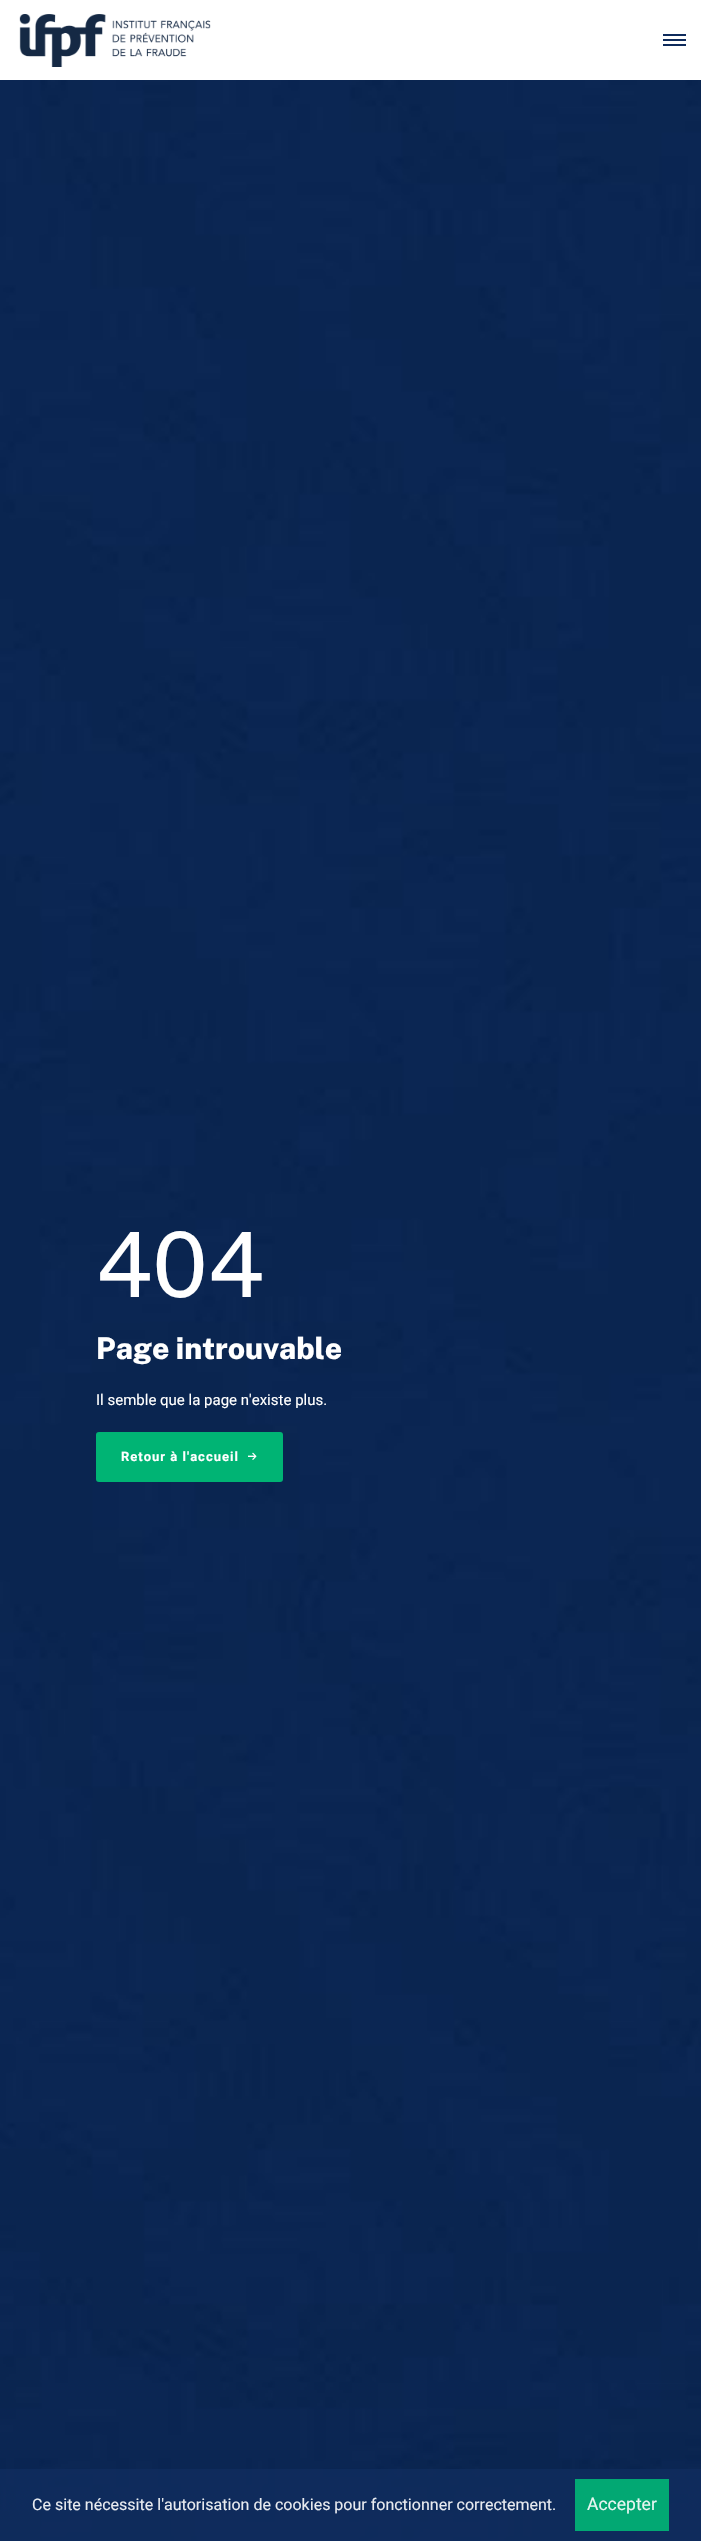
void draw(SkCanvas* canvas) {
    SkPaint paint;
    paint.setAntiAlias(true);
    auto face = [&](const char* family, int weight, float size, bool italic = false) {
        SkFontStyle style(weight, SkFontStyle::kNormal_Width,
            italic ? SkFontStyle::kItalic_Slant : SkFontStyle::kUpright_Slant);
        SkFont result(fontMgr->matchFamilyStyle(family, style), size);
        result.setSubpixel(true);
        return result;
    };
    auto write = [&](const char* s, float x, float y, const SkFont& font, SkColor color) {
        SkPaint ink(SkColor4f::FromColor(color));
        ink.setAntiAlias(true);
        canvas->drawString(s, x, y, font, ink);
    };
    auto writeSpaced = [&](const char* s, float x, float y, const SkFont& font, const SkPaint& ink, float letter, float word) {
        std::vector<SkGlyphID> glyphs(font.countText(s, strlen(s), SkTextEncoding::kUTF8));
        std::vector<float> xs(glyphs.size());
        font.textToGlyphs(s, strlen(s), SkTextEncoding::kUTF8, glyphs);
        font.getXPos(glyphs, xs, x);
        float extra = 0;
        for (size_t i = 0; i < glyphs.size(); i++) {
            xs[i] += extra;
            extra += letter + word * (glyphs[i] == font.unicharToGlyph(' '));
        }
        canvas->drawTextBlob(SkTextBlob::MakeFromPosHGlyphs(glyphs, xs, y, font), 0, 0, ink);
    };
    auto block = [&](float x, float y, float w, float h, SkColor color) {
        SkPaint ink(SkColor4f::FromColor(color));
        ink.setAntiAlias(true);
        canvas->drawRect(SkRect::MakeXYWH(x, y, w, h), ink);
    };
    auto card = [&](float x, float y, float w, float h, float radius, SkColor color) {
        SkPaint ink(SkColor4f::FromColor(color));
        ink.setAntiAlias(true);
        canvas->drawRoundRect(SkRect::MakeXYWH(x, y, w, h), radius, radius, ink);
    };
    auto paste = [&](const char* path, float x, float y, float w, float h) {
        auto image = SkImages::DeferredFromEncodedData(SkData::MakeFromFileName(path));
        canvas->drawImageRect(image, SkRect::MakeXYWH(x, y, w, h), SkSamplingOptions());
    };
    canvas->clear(SK_ColorWHITE);
    paste("pic1.png", 19, 14, 192, 53);
    block(663, 34, 23, 2, SkColorSetRGB(14, 43, 92));
    block(663, 39, 23, 2, SkColorSetRGB(14, 43, 92));
    block(663, 44, 23, 2, SkColorSetRGB(14, 43, 92));
    paste("pic2.png", 0, 80, 701, 2461);
    auto kFont1 = face("Public Sans", 400, 90);
    write("404", 96, 1297, kFont1, SK_ColorWHITE);
    auto kFont2 = face("Public Sans", 800, 30);
    write("Page introuvable", 96, 1359, kFont2, SK_ColorWHITE);
    auto kFont3 = face("Heebo", 400, 15);
    write("Il semble que la page n'existe plus.", 96, 1405, kFont3, SK_ColorWHITE);
    card(96, 1432, 187, 50, 3, SkColorSetRGB(0, 180, 116));
    auto kFont4 = face("Heebo", 700, 13);
    paint.setColor(SK_ColorWHITE);
    writeSpaced("Retour à l'accueil", 121, 1461, kFont4, paint, 1, 0);
    paste("pic3.png", 248, 1452, 9, 8);
    block(0, 2469, 701, 72, SkColorSetARGB(230, 14, 43, 92));
    block(575, 2479, 94, 52, SkColorSetRGB(1, 166, 113));
    block(575, 2479, 94, 52, SkColorSetARGB(230, 14, 43, 92));
    auto kFont5 = face("Heebo", 400, 16);
    write("Ce site nécessite l'autorisation de cookies pour fonctionner correctement.", 32, 2510, kFont5, SkColorSetRGB(232, 235, 240));
    block(575, 2479, 94, 52, SkColorSetARGB(230, 0, 180, 116));
    auto kFont6 = face("Heebo", 400, 17.5f);
    write("Accepter", 587, 2510, kFont6, SkColorSetRGB(230, 246, 241));
}
